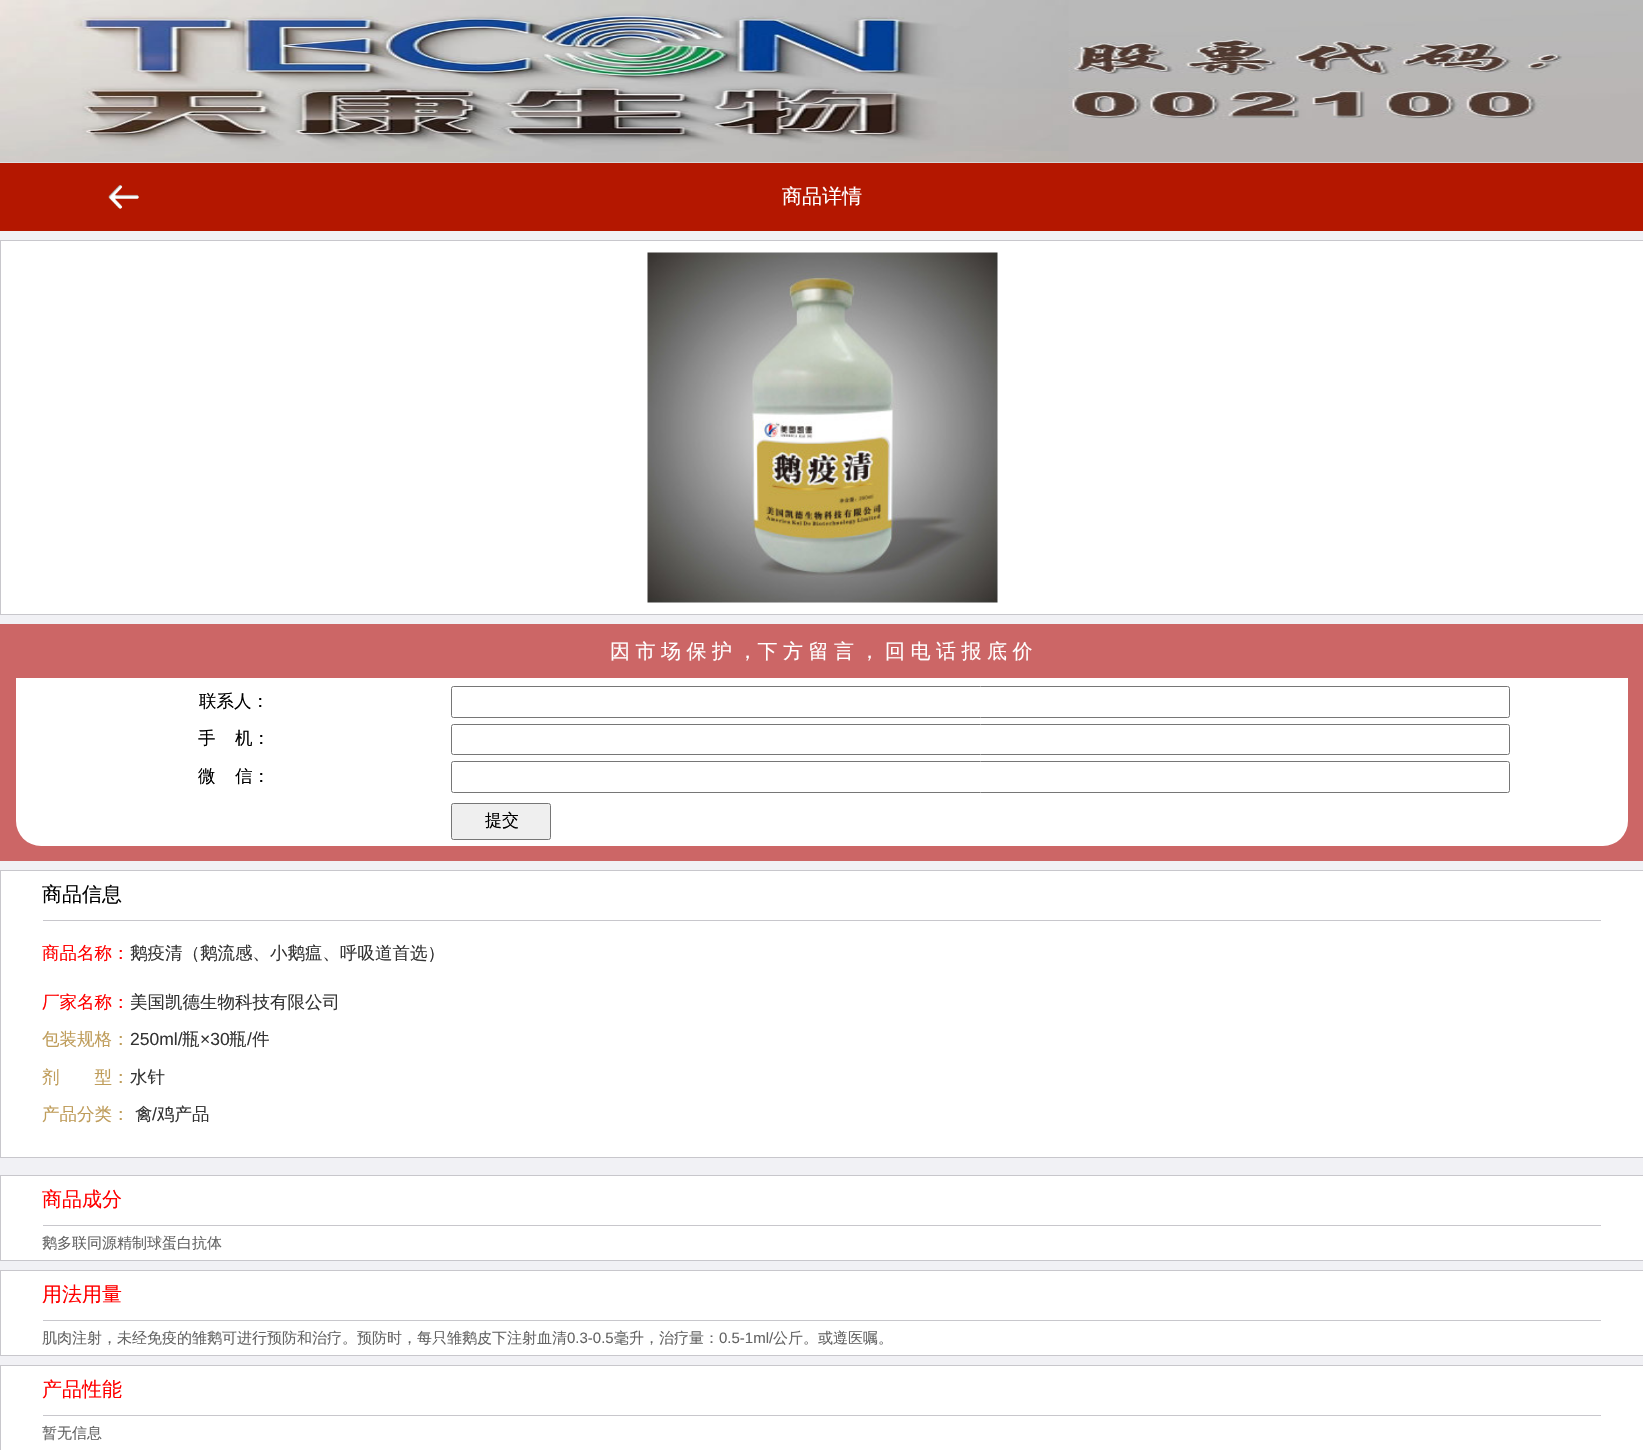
void draw(SkCanvas* canvas) {
    SkPaint paint;
    paint.setAntiAlias(true);
    auto face = [&](const char* family, int weight, float size, bool italic = false) {
        SkFontStyle style(weight, SkFontStyle::kNormal_Width,
            italic ? SkFontStyle::kItalic_Slant : SkFontStyle::kUpright_Slant);
        SkFont result(fontMgr->matchFamilyStyle(family, style), size);
        result.setSubpixel(true);
        return result;
    };
    auto write = [&](const char* s, float x, float y, const SkFont& font, SkColor color) {
        SkPaint ink(SkColor4f::FromColor(color));
        ink.setAntiAlias(true);
        canvas->drawString(s, x, y, font, ink);
    };
    auto writeSpaced = [&](const char* s, float x, float y, const SkFont& font, const SkPaint& ink, float letter, float word) {
        std::vector<SkGlyphID> glyphs(font.countText(s, strlen(s), SkTextEncoding::kUTF8));
        std::vector<float> xs(glyphs.size());
        font.textToGlyphs(s, strlen(s), SkTextEncoding::kUTF8, glyphs);
        font.getXPos(glyphs, xs, x);
        float extra = 0;
        for (size_t i = 0; i < glyphs.size(); i++) {
            xs[i] += extra;
            extra += letter + word * (glyphs[i] == font.unicharToGlyph(' '));
        }
        canvas->drawTextBlob(SkTextBlob::MakeFromPosHGlyphs(glyphs, xs, y, font), 0, 0, ink);
    };
    auto block = [&](float x, float y, float w, float h, SkColor color) {
        SkPaint ink(SkColor4f::FromColor(color));
        ink.setAntiAlias(true);
        canvas->drawRect(SkRect::MakeXYWH(x, y, w, h), ink);
    };
    auto card = [&](float x, float y, float w, float h, float radius, SkColor color) {
        SkPaint ink(SkColor4f::FromColor(color));
        ink.setAntiAlias(true);
        canvas->drawRoundRect(SkRect::MakeXYWH(x, y, w, h), radius, radius, ink);
    };
    auto paste = [&](const char* path, float x, float y, float w, float h) {
        auto image = SkImages::DeferredFromEncodedData(SkData::MakeFromFileName(path));
        canvas->drawImageRect(image, SkRect::MakeXYWH(x, y, w, h), SkSamplingOptions());
    };
    canvas->clear(SkColorSetRGB(241, 241, 245));
    paste("pic1.png", 0, 0, 1643, 163);
    block(0, 163, 1643, 68, SkColorSetRGB(180, 23, 0));
    paste("pic2.png", 108, 185, 31, 24);
    auto kFont1 = face("WenQuanYi Zen Hei", 500, 20);
    write("商品详情", 782, 203, kFont1, SK_ColorWHITE);
    paint.setColor(SK_ColorWHITE);
    canvas->drawRect(SkRect::MakeXYWH(0.5f, 240.5f, 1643, 374), paint);
    paint.setStyle(SkPaint::kStroke_Style);
    paint.setStrokeWidth(1);
    paint.setColor(SkColorSetRGB(200, 199, 204));
    canvas->drawRect(SkRect::MakeXYWH(0.5f, 240.5f, 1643, 374), paint);
    paste("pic3.png", 647, 252, 351, 351);
    block(0, 624, 1643, 237, SkColorSetRGB(204, 102, 102));
    card(16, 640, 1612, 206, 25, SK_ColorWHITE);
    block(16, 640, 1612, 38, SkColorSetRGB(204, 102, 102));
    paint.setStyle(SkPaint::kFill_Style);
    paint.setColor(SK_ColorWHITE);
    writeSpaced("因 市 场 保 护 ，下 方 留 言 ， 回 电 话 报 底 价", 610, 658, kFont1, paint, 0, -0.5f);
    auto kFont2 = face("WenQuanYi Zen Hei", 500, 17.5f);
    write("联系人：", 199, 707, kFont2, SK_ColorBLACK);
    paint.setStyle(SkPaint::kStroke_Style);
    paint.setColor(SkColorSetRGB(118, 118, 118));
    canvas->drawRoundRect(SkRect::MakeXYWH(451.5f, 686.5f, 1058, 31), 2, 2, paint);
    write("手", 198, 744, kFont2, SK_ColorBLACK);
    write("机：", 235, 744, kFont2, SK_ColorBLACK);
    canvas->drawRoundRect(SkRect::MakeXYWH(451.5f, 724.5f, 1058, 30), 2, 2, paint);
    write("微", 198, 782, kFont2, SK_ColorBLACK);
    write("信：", 235, 782, kFont2, SK_ColorBLACK);
    canvas->drawRoundRect(SkRect::MakeXYWH(451.5f, 761.5f, 1058, 31), 2, 2, paint);
    paint.setStyle(SkPaint::kFill_Style);
    paint.setColor(SkColorSetRGB(239, 239, 239));
    canvas->drawRoundRect(SkRect::MakeXYWH(451.5f, 803.5f, 99, 36), 2, 2, paint);
    paint.setStyle(SkPaint::kStroke_Style);
    paint.setColor(SkColorSetRGB(118, 118, 118));
    canvas->drawRoundRect(SkRect::MakeXYWH(451.5f, 803.5f, 99, 36), 2, 2, paint);
    auto kFont3 = face("WenQuanYi Zen Hei", 500, 17);
    write("提交", 485, 826, kFont3, SK_ColorBLACK);
    paint.setStyle(SkPaint::kFill_Style);
    paint.setColor(SK_ColorWHITE);
    canvas->drawRect(SkRect::MakeXYWH(0.5f, 870.5f, 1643, 287), paint);
    paint.setStyle(SkPaint::kStroke_Style);
    paint.setColor(SkColorSetRGB(200, 199, 204));
    canvas->drawRect(SkRect::MakeXYWH(0.5f, 870.5f, 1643, 287), paint);
    block(43, 920, 1558, 1, SkColorSetRGB(200, 199, 204));
    write("商品信息", 42, 901, kFont1, SK_ColorBLACK);
    write("商品名称：", 42, 959, kFont2, SkColorSetRGB(255, 0, 0));
    write("鹅疫清（鹅流感、小鹅瘟、呼吸道首选）", 130, 959, kFont2, SkColorSetRGB(51, 51, 51));
    write("厂家名称：", 42, 1008, kFont2, SkColorSetRGB(255, 0, 0));
    write("美国凯德生物科技有限公司", 130, 1008, kFont2, SkColorSetRGB(51, 51, 51));
    write("包装规格：", 42, 1045, kFont2, SkColorSetRGB(191, 157, 91));
    auto kFont4 = face("Liberation Sans", 400, 17.5f);
    write("250ml/", 130, 1045, kFont4, SkColorSetRGB(51, 51, 51));
    write("瓶", 182, 1045, kFont2, SkColorSetRGB(51, 51, 51));
    write("×30", 200, 1045, kFont4, SkColorSetRGB(51, 51, 51));
    write("瓶", 229, 1045, kFont2, SkColorSetRGB(51, 51, 51));
    write("/", 247, 1045, kFont4, SkColorSetRGB(51, 51, 51));
    write("件", 252, 1045, kFont2, SkColorSetRGB(51, 51, 51));
    write("剂　　型：", 42, 1083, kFont2, SkColorSetRGB(191, 157, 91));
    write("水针", 130, 1083, kFont2, SkColorSetRGB(51, 51, 51));
    write("产品分类：", 42, 1120, kFont2, SkColorSetRGB(191, 157, 91));
    write("禽", 135, 1120, kFont2, SkColorSetRGB(51, 51, 51));
    write("/", 152, 1120, kFont4, SkColorSetRGB(51, 51, 51));
    write("鸡产品", 157, 1120, kFont2, SkColorSetRGB(51, 51, 51));
    paint.setStyle(SkPaint::kFill_Style);
    paint.setColor(SK_ColorWHITE);
    canvas->drawRect(SkRect::MakeXYWH(0.5f, 1175.5f, 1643, 85), paint);
    paint.setStyle(SkPaint::kStroke_Style);
    paint.setColor(SkColorSetRGB(200, 199, 204));
    canvas->drawRect(SkRect::MakeXYWH(0.5f, 1175.5f, 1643, 85), paint);
    block(43, 1225, 1558, 1, SkColorSetRGB(200, 199, 204));
    write("商品成分", 42, 1206, kFont1, SkColorSetRGB(255, 0, 0));
    auto kFont5 = face("WenQuanYi Zen Hei", 500, 15);
    write("鹅多联同源精制球蛋白抗体", 42, 1248, kFont5, SkColorSetRGB(100, 100, 100));
    paint.setStyle(SkPaint::kFill_Style);
    paint.setColor(SK_ColorWHITE);
    canvas->drawRect(SkRect::MakeXYWH(0.5f, 1270.5f, 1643, 85), paint);
    paint.setStyle(SkPaint::kStroke_Style);
    paint.setColor(SkColorSetRGB(200, 199, 204));
    canvas->drawRect(SkRect::MakeXYWH(0.5f, 1270.5f, 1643, 85), paint);
    block(43, 1320, 1558, 1, SkColorSetRGB(200, 199, 204));
    write("用法用量", 42, 1301, kFont1, SkColorSetRGB(255, 0, 0));
    write("肌肉注射，未经免疫的雏鹅可进行预防和治疗。预防时，每只雏鹅皮下注射血清", 42, 1343, kFont5, SkColorSetRGB(100, 100, 100));
    auto kFont6 = face("Liberation Sans", 400, 15);
    write("0.3-0.5", 567, 1343, kFont6, SkColorSetRGB(100, 100, 100));
    write("毫升，治疗量：", 614, 1343, kFont5, SkColorSetRGB(100, 100, 100));
    write("0.5-1ml/", 719, 1343, kFont6, SkColorSetRGB(100, 100, 100));
    write("公斤。或遵医嘱。", 773, 1343, kFont5, SkColorSetRGB(100, 100, 100));
    paint.setStyle(SkPaint::kFill_Style);
    paint.setColor(SK_ColorWHITE);
    canvas->drawRect(SkRect::MakeXYWH(0.5f, 1365.5f, 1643, 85), paint);
    paint.setStyle(SkPaint::kStroke_Style);
    paint.setColor(SkColorSetRGB(200, 199, 204));
    canvas->drawRect(SkRect::MakeXYWH(0.5f, 1365.5f, 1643, 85), paint);
    block(43, 1415, 1558, 1, SkColorSetRGB(200, 199, 204));
    write("产品性能", 42, 1396, kFont1, SkColorSetRGB(255, 0, 0));
    write("暂无信息", 42, 1438, kFont5, SkColorSetRGB(100, 100, 100));
}
